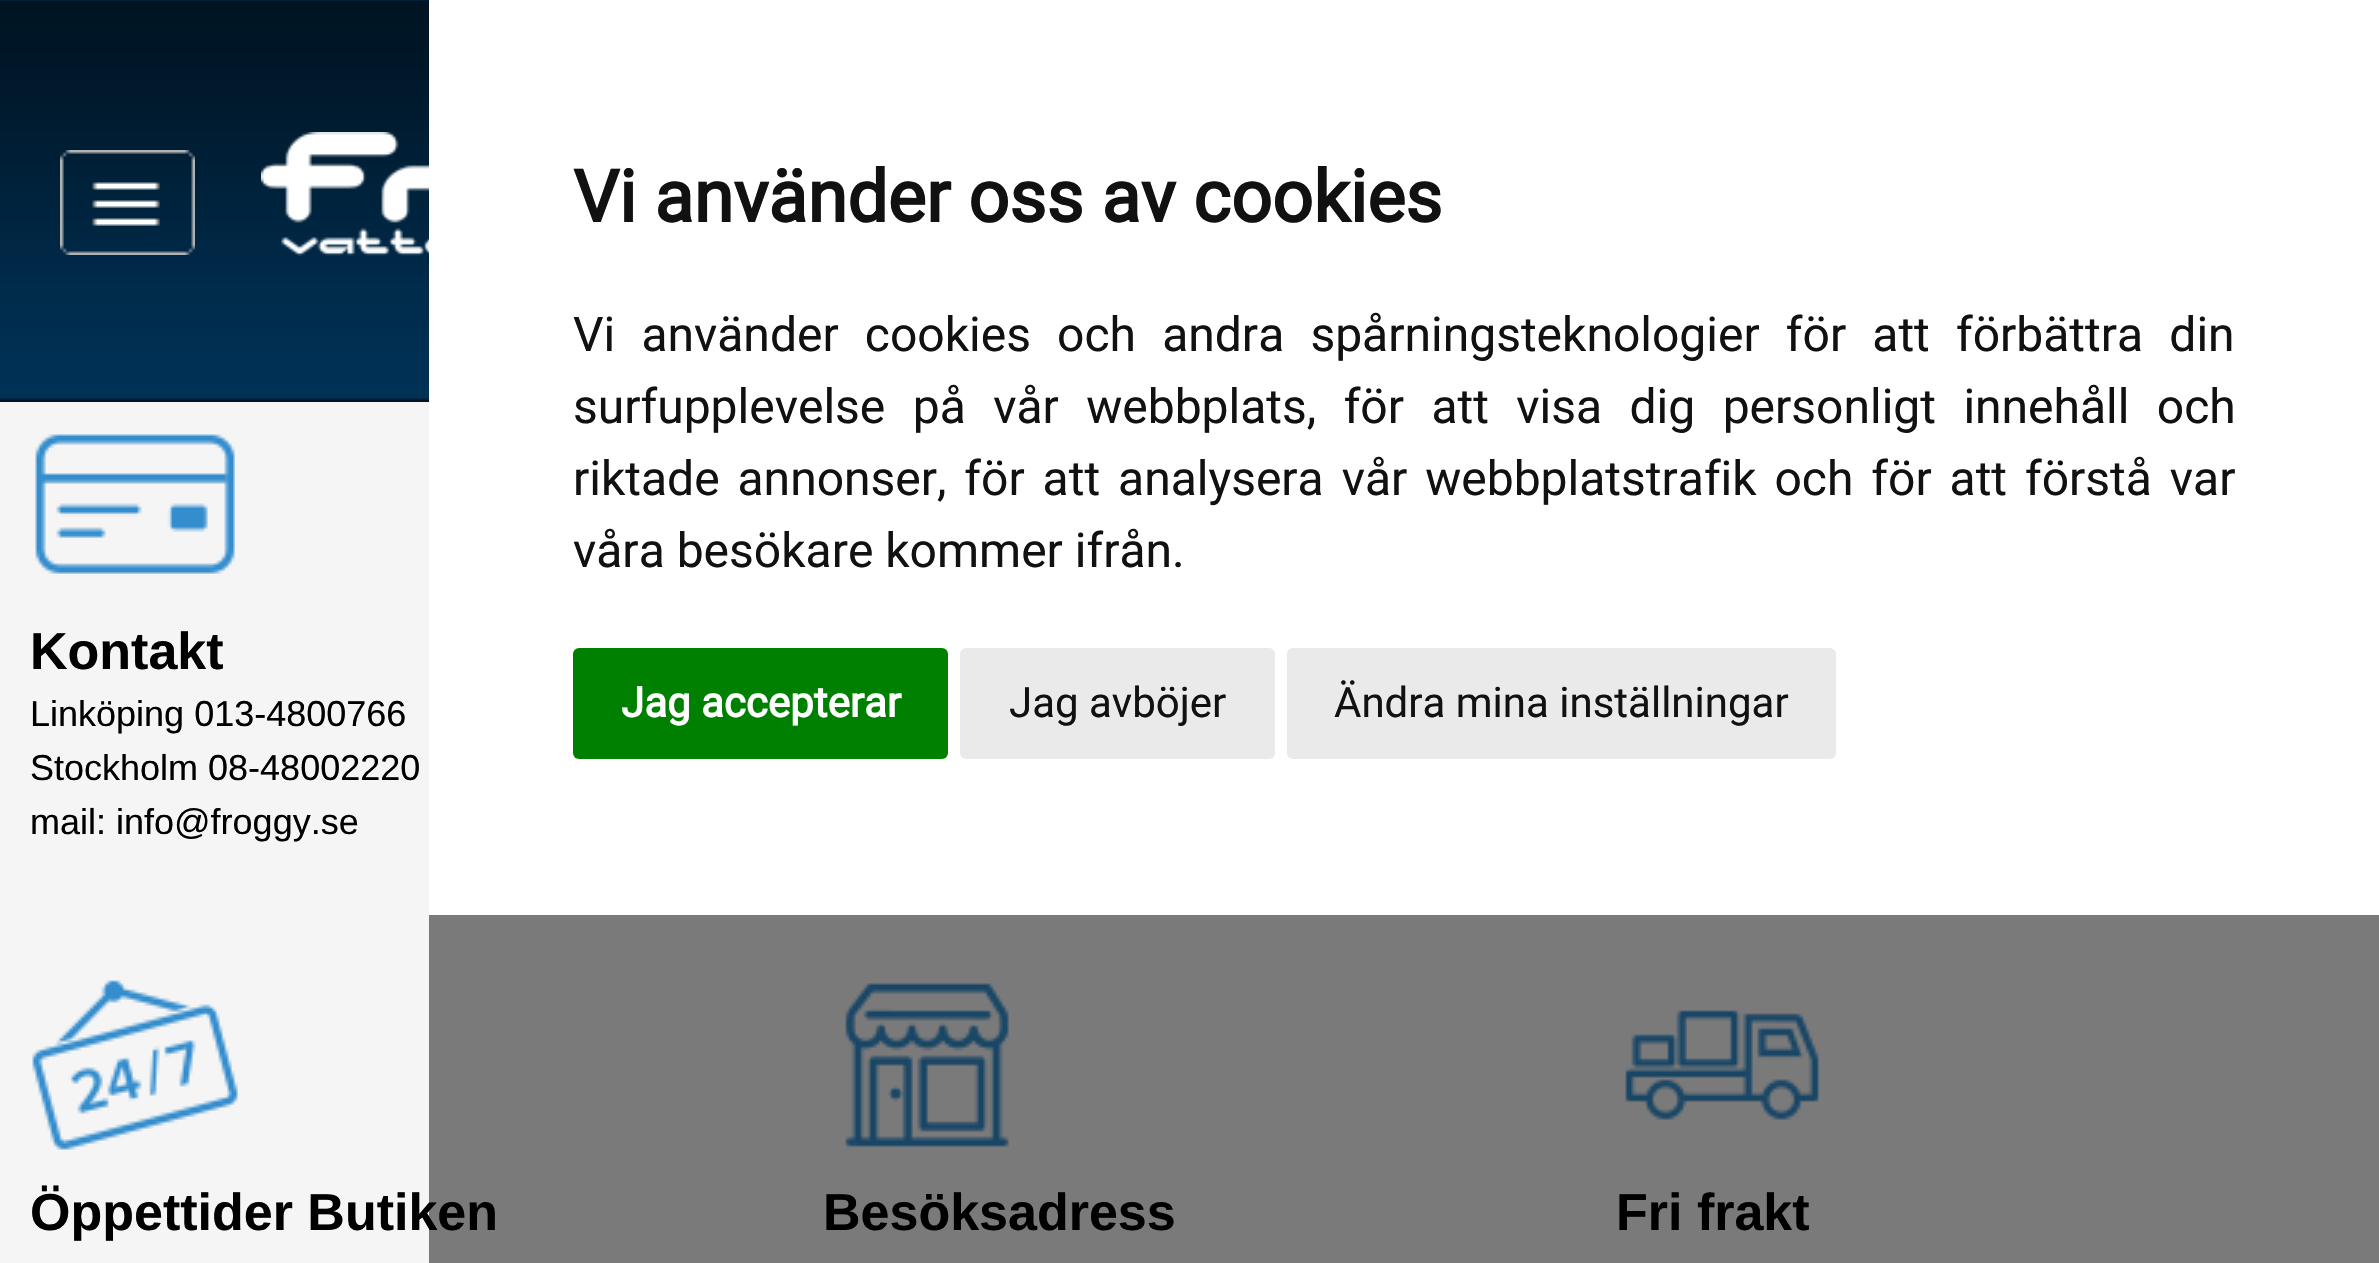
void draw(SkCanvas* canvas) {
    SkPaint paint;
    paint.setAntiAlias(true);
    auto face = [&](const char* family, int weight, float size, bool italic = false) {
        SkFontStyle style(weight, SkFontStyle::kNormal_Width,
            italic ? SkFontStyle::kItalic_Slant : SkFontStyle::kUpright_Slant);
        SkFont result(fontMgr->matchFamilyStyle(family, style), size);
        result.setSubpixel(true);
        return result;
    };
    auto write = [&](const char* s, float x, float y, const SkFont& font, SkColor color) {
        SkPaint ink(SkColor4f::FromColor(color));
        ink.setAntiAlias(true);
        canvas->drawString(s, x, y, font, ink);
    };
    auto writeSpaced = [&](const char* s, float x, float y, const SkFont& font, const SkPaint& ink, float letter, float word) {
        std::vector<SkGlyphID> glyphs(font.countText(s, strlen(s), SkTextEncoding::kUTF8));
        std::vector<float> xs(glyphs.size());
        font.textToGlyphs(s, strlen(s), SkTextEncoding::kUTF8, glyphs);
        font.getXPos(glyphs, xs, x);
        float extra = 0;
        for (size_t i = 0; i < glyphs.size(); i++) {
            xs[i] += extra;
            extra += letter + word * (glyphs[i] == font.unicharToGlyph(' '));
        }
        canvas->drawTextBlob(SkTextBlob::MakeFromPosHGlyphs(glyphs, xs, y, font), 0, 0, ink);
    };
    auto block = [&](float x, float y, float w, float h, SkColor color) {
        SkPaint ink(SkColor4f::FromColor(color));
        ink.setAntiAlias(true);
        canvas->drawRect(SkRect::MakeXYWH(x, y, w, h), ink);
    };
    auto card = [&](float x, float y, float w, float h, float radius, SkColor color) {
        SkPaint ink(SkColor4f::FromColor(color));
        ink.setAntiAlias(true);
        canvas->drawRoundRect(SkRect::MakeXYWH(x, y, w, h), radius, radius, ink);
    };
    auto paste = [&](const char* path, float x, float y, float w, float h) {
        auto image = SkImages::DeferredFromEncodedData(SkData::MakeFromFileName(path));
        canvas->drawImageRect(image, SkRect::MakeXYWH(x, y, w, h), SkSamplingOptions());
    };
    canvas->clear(SkColorSetRGB(245, 245, 245));
    paste("pic1.png", 0, 0, 429, 402);
    paste("pic2.png", 60, 150, 135, 105);
    paste("pic3.png", 261, 132, 168, 124);
    auto kFont1 = face("Liberation Sans", 700, 52);
    write("Öppettider Butiken", 30, 1230, kFont1, SK_ColorBLACK);
    paste("pic6.png", 845, 983, 164, 164);
    write("Besöksadress", 823, 1230, kFont1, SK_ColorBLACK);
    paste("pic7.png", 1625, 1010, 194, 110);
    write("Fri frakt", 1616, 1230, kFont1, SK_ColorBLACK);
    block(429, 915, 1950, 348, SkColorSetARGB(128, 0, 0, 0));
    block(429, 0, 1950, 915, SK_ColorWHITE);
    auto kFont2 = face("Roboto", 700, 72);
    write("Vi använder oss av cookies", 573, 222, kFont2, SkColorSetRGB(17, 17, 17));
    auto kFont3 = face("Roboto", 400, 48);
    paint.setColor(SkColorSetRGB(17, 17, 17));
    writeSpaced("Vi använder cookies och andra spårningsteknologier för att förbättra din", 573, 351, kFont3, paint, 0, 14.25f);
    writeSpaced("surfupplevelse på vår webbplats, för att visa dig personligt innehåll och", 573, 423, kFont3, paint, 0, 15.5f);
    writeSpaced("riktade annonser, för att analysera vår webbplatstrafik och för att förstå var", 573, 495, kFont3, paint, 0, 6);
    write("våra besökare kommer ifrån.", 573, 567, kFont3, SkColorSetRGB(17, 17, 17));
    card(573, 648, 375, 111, 6, SkColorSetRGB(0, 128, 0));
    auto kFont4 = face("Roboto", 700, 42);
    write("Jag accepterar", 621, 717, kFont4, SK_ColorWHITE);
    card(960, 648, 315, 111, 6, SkColorSetRGB(234, 234, 234));
    auto kFont5 = face("Roboto", 400, 42);
    write("Jag avböjer", 1009, 717, kFont5, SkColorSetRGB(17, 17, 17));
    card(1287, 648, 549, 111, 6, SkColorSetRGB(234, 234, 234));
    write("Ändra mina inställningar", 1334, 717, kFont5, SkColorSetRGB(17, 17, 17));
    paste("pic4.png", 35, 434, 200, 140);
    write("Kontakt", 30, 669, kFont1, SK_ColorBLACK);
    auto kFont6 = face("Liberation Sans", 400, 36);
    write("Linköping 013-4800766", 30, 726, kFont6, SK_ColorBLACK);
    write("Stockholm 08-48002220", 30, 780, kFont6, SK_ColorBLACK);
    write("mail: info@froggy.se", 30, 834, kFont6, SK_ColorBLACK);
    paste("pic5.png", 32, 980, 206, 170);
}
